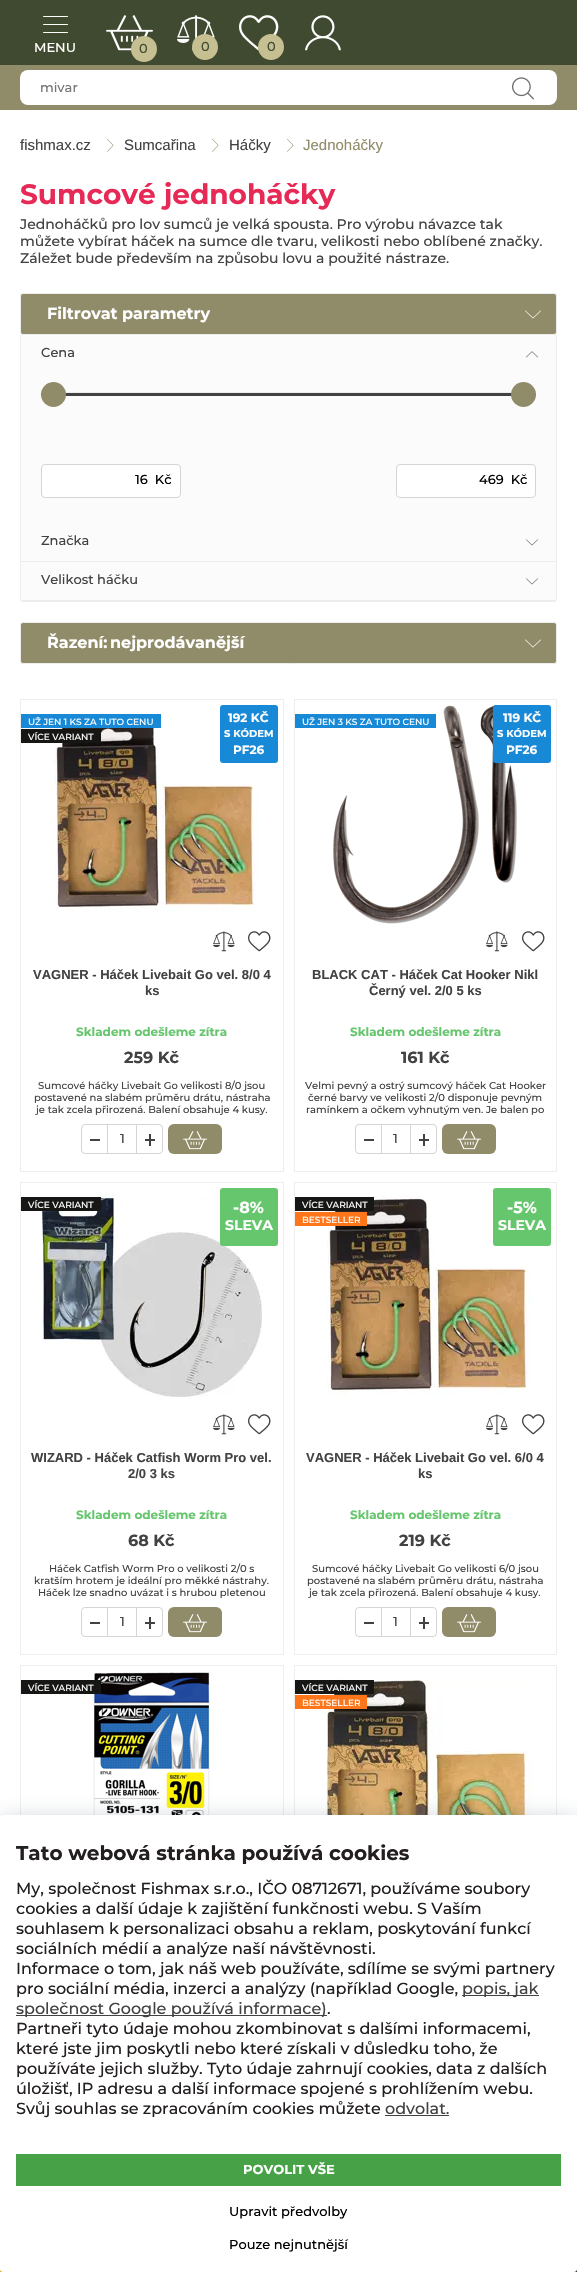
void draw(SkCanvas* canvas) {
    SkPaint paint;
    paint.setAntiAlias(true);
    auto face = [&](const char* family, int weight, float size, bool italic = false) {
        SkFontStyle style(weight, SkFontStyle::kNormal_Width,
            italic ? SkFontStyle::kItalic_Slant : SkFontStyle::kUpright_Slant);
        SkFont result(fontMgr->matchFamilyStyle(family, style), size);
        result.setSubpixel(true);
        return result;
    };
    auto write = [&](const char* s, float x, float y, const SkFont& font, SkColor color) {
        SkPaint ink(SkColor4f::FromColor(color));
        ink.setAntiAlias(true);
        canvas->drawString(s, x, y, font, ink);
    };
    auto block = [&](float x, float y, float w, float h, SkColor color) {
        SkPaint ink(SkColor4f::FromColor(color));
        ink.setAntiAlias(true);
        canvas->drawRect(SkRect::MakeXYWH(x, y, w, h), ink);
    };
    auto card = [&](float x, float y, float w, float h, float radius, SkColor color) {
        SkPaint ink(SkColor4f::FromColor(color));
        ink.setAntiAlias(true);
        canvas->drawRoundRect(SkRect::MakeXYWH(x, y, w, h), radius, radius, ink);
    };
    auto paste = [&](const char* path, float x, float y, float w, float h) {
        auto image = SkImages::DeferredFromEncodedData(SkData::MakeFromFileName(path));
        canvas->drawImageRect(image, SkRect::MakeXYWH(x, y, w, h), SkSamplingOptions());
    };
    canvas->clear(SK_ColorWHITE);
    block(0, 0, 577, 65, SkColorSetRGB(64, 74, 48));
    card(43, 16, 25, 1, 0.5f, SK_ColorWHITE);
    card(43, 24, 25, 1, 0.5f, SK_ColorWHITE);
    card(43, 32, 25, 1, 0.5f, SK_ColorWHITE);
    auto kFont1 = face("Montserrat", 500, 13);
    write("MENU", 34, 52, kFont1, SK_ColorWHITE);
    paste("pic1.png", 106, 15, 47, 36);
    paint.setColor(SkColorSetRGB(198, 191, 145));
    canvas->drawCircle(144, 49, 12, paint);
    paint.setStyle(SkPaint::kStroke_Style);
    paint.setStrokeWidth(2);
    canvas->drawCircle(144, 49, 12, paint);
    write("0", 139, 53, kFont1, SkColorSetRGB(65, 75, 49));
    block(0, 65, 577, 45, SkColorSetRGB(144, 140, 105));
    card(20, 70, 537, 35, 8, SK_ColorWHITE);
    write("mivar", 40, 92, kFont1, SkColorSetRGB(117, 117, 117));
    paste("pic2.png", 512, 77, 22, 23);
    paste("pic3.png", 177, 15, 38, 36);
    paint.setStyle(SkPaint::kFill_Style);
    canvas->drawCircle(205, 47, 12, paint);
    paint.setStyle(SkPaint::kStroke_Style);
    canvas->drawCircle(205, 47, 12, paint);
    write("0", 201, 51, kFont1, SkColorSetRGB(65, 75, 49));
    paste("pic4.png", 239, 15, 40, 36);
    paint.setStyle(SkPaint::kFill_Style);
    canvas->drawCircle(271, 47, 12, paint);
    paint.setStyle(SkPaint::kStroke_Style);
    canvas->drawCircle(271, 47, 12, paint);
    write("0", 267, 51, kFont1, SkColorSetRGB(65, 75, 49));
    paste("pic5.png", 305, 15, 36, 36);
    auto kFont2 = face("Liberation Sans", 400, 15);
    write("fishmax.cz", 20, 150, kFont2, SkColorSetRGB(66, 66, 66));
    paste("pic6.png", 107, 138, 7, 14);
    write("Sumcařina", 124, 150, kFont2, SkColorSetRGB(66, 66, 66));
    paste("pic6.png", 212, 138, 7, 14);
    write("Háčky", 229, 150, kFont2, SkColorSetRGB(66, 66, 66));
    paste("pic6.png", 287, 138, 7, 14);
    write("Jednoháčky", 303, 150, kFont2, SkColorSetRGB(144, 139, 104));
    auto kFont3 = face("Montserrat", 700, 28);
    write("Sumcové jednoháčky", 20, 204, kFont3, SkColorSetRGB(231, 41, 86));
    auto kFont4 = face("Montserrat", 500, 14);
    write("Jednoháčků pro lov sumců je velká spousta. Pro výrobu návazce tak", 20, 229, kFont4, SkColorSetRGB(66, 66, 66));
    write("můžete vybírat háček na sumce dle tvaru, velikosti nebo oblíbené značky.", 20, 246, kFont4, SkColorSetRGB(66, 66, 66));
    write("Záležet bude především na způsobu lovu a použité nástraze.", 20, 263, kFont4, SkColorSetRGB(66, 66, 66));
    paint.setStyle(SkPaint::kFill_Style);
    paint.setColor(SkColorSetRGB(144, 139, 104));
    canvas->drawRoundRect(SkRect::MakeXYWH(20.5f, 293.5f, 536, 41), 2.5f, 2.5f, paint);
    paint.setStyle(SkPaint::kStroke_Style);
    paint.setStrokeWidth(1);
    paint.setColor(SkColorSetRGB(237, 237, 237));
    canvas->drawRoundRect(SkRect::MakeXYWH(20.5f, 293.5f, 536, 41), 2.5f, 2.5f, paint);
    auto kFont5 = face("Montserrat", 700, 16);
    write("Filtrovat parametry", 47, 319, kFont5, SK_ColorWHITE);
    paste("pic7.png", 525, 310, 16, 9);
    paint.setStyle(SkPaint::kFill_Style);
    paint.setColor(SkColorSetRGB(251, 251, 251));
    canvas->drawPath(SkPathBuilder().moveTo(20, 335).lineTo(557, 335).lineTo(557, 599).cubicTo(557, 600.5f, 555.5f, 602, 554, 602).lineTo(23, 602).cubicTo(21.5f, 602, 20, 600.5f, 20, 599).close().detach(), paint);
    paint.setColor(SkColorSetRGB(237, 237, 237));
    canvas->drawPath(SkPathBuilder(SkPathFillType::kEvenOdd).moveTo(20, 335).lineTo(557, 335).lineTo(557, 599).cubicTo(557, 601, 556, 602, 554, 602).lineTo(23, 602).cubicTo(21, 602, 20, 601, 20, 599).close().moveTo(21, 335).lineTo(556, 335).lineTo(556, 599).cubicTo(556, 600, 555, 601, 554, 601).lineTo(23, 601).cubicTo(22, 601, 21, 600, 21, 599).close().detach(), paint);
    write("Cena", 41, 357, kFont1, SkColorSetRGB(66, 66, 66));
    paste("pic8.png", 526, 351, 12, 7);
    paint.setStyle(SkPaint::kStroke_Style);
    canvas->drawRoundRect(SkRect::MakeXYWH(41.5f, 392.5f, 492, 3), 1.5f, 1.5f, paint);
    card(41, 393, 495, 3, 1.5f, SkColorSetRGB(66, 66, 66));
    paint.setStyle(SkPaint::kFill_Style);
    paint.setColor(SkColorSetRGB(144, 139, 104));
    canvas->drawCircle(53.5f, 394.5f, 12.5f, paint);
    canvas->drawCircle(523.5f, 394.5f, 12.5f, paint);
    paint.setColor(SK_ColorWHITE);
    canvas->drawRoundRect(SkRect::MakeXYWH(41.5f, 464.5f, 139, 33), 3.5f, 3.5f, paint);
    paint.setStyle(SkPaint::kStroke_Style);
    paint.setColor(SkColorSetRGB(214, 212, 212));
    canvas->drawRoundRect(SkRect::MakeXYWH(41.5f, 464.5f, 139, 33), 3.5f, 3.5f, paint);
    write("16  Kč", 135, 484, kFont1, SK_ColorBLACK);
    paint.setStyle(SkPaint::kFill_Style);
    paint.setColor(SK_ColorWHITE);
    canvas->drawRoundRect(SkRect::MakeXYWH(396.5f, 464.5f, 139, 33), 3.5f, 3.5f, paint);
    paint.setStyle(SkPaint::kStroke_Style);
    paint.setColor(SkColorSetRGB(214, 212, 212));
    canvas->drawRoundRect(SkRect::MakeXYWH(396.5f, 464.5f, 139, 33), 3.5f, 3.5f, paint);
    write("469  Kč", 479, 484, kFont1, SK_ColorBLACK);
    block(21, 561, 535, 1, SkColorSetRGB(237, 237, 237));
    write("Značka", 41, 545, kFont1, SkColorSetRGB(66, 66, 66));
    paste("pic9.png", 526, 539, 12, 7);
    block(21, 600, 535, 1, SkColorSetRGB(237, 237, 237));
    write("Velikost háčku", 41, 584, kFont1, SkColorSetRGB(66, 66, 66));
    paste("pic9.png", 526, 578, 12, 7);
    paint.setStyle(SkPaint::kFill_Style);
    paint.setColor(SkColorSetRGB(144, 139, 104));
    canvas->drawRoundRect(SkRect::MakeXYWH(20.5f, 622.5f, 536, 41), 2.5f, 2.5f, paint);
    paint.setStyle(SkPaint::kStroke_Style);
    paint.setColor(SkColorSetRGB(237, 237, 237));
    canvas->drawRoundRect(SkRect::MakeXYWH(20.5f, 622.5f, 536, 41), 2.5f, 2.5f, paint);
    write("Řazení:", 47, 648, kFont5, SK_ColorWHITE);
    write("nejprodávanější", 110, 648, kFont5, SK_ColorWHITE);
    paste("pic7.png", 525, 639, 16, 9);
    paint.setColor(SkColorSetRGB(238, 238, 238));
    canvas->drawRect(SkRect::MakeXYWH(20.5f, 699.5f, 263, 472), paint);
    paste("pic10.png", 54, 713, 204, 200);
    block(21, 714, 140, 14, SkColorSetRGB(24, 137, 215));
    auto kFont6 = face("Montserrat", 500, 9);
    write("UŽ JEN 1 KS ZA TUTO CENU", 28, 725, kFont6, SK_ColorWHITE);
    block(21, 729, 80, 14, SkColorSetRGB(22, 23, 20));
    write("VÍCE VARIANT", 28, 740, kFont6, SK_ColorWHITE);
    card(220, 705, 58, 58, 3, SkColorSetRGB(24, 137, 215));
    auto kFont7 = face("Montserrat", 700, 12);
    write("192 KČ", 228, 722, kFont7, SK_ColorWHITE);
    auto kFont8 = face("Montserrat", 700, 10);
    write("S KÓDEM", 224, 737, kFont8, SK_ColorWHITE);
    write("PF26", 233, 754, kFont7, SK_ColorWHITE);
    paste("pic11.png", 213, 931, 22, 21);
    paste("pic12.png", 248, 931, 23, 21);
    auto kFont9 = face("Liberation Sans", 700, 13);
    write("VAGNER - Háček Livebait Go vel. 8/0 4", 33, 979, kFont9, SkColorSetRGB(66, 66, 66));
    write("ks", 145, 995, kFont9, SkColorSetRGB(66, 66, 66));
    write("Skladem odešleme zítra", 76, 1036, kFont7, SkColorSetRGB(102, 198, 109));
    write("259 Kč", 124, 1063, kFont5, SkColorSetRGB(66, 66, 66));
    auto kFont10 = face("Montserrat", 500, 10);
    write("Sumcové háčky Livebait Go velikosti 8/0 jsou", 38, 1089, kFont10, SkColorSetRGB(66, 66, 66));
    write("postavené na slabém průměru drátu, nástraha", 34, 1101, kFont10, SkColorSetRGB(66, 66, 66));
    write("je tak zcela přirozená. Balení obsahuje 4 kusy.", 36, 1113, kFont10, SkColorSetRGB(66, 66, 66));
    paint.setColor(SkColorSetRGB(214, 212, 212));
    canvas->drawRoundRect(SkRect::MakeXYWH(81.5f, 1124.5f, 81, 29), 3.5f, 3.5f, paint);
    block(90, 1139, 10, 2, SkColorSetRGB(66, 66, 66));
    block(136, 1125, 1, 28, SkColorSetRGB(214, 212, 212));
    block(107, 1125, 1, 28, SkColorSetRGB(214, 212, 212));
    write("1", 120, 1143, kFont1, SkColorSetRGB(66, 66, 66));
    block(149, 1134, 2, 12, SkColorSetRGB(66, 66, 66));
    block(145, 1139, 10, 2, SkColorSetRGB(66, 66, 66));
    card(168, 1124, 54, 30, 6, SkColorSetRGB(144, 139, 104));
    paste("pic13.png", 183, 1131, 25, 19);
    paint.setColor(SkColorSetRGB(238, 238, 238));
    canvas->drawRect(SkRect::MakeXYWH(294.5f, 699.5f, 262, 472), paint);
    paste("pic14.png", 333, 705, 184, 219);
    block(295, 714, 141, 14, SkColorSetRGB(24, 137, 215));
    write("UŽ JEN 3 KS ZA TUTO CENU", 302, 725, kFont6, SK_ColorWHITE);
    card(493, 705, 58, 58, 3, SkColorSetRGB(24, 137, 215));
    write("119 KČ", 503, 722, kFont7, SK_ColorWHITE);
    write("S KÓDEM", 497, 737, kFont8, SK_ColorWHITE);
    write("PF26", 506, 754, kFont7, SK_ColorWHITE);
    paste("pic11.png", 486, 931, 22, 21);
    paste("pic12.png", 522, 931, 23, 21);
    write("BLACK CAT - Háček Cat Hooker Nikl", 312, 979, kFont9, SkColorSetRGB(66, 66, 66));
    write("Černý vel. 2/0 5 ks", 369, 995, kFont9, SkColorSetRGB(66, 66, 66));
    write("Skladem odešleme zítra", 350, 1036, kFont7, SkColorSetRGB(102, 198, 109));
    write("161 Kč", 401, 1063, kFont5, SkColorSetRGB(66, 66, 66));
    write("Velmi pevný a ostrý sumcový háček Cat Hooker", 305, 1089, kFont10, SkColorSetRGB(66, 66, 66));
    write("černé barvy ve velikosti 2/0 disponuje pevným", 308, 1101, kFont10, SkColorSetRGB(66, 66, 66));
    write("ramínkem a očkem vyhnutým ven. Je balen po", 306, 1113, kFont10, SkColorSetRGB(66, 66, 66));
    paint.setColor(SkColorSetRGB(214, 212, 212));
    canvas->drawRoundRect(SkRect::MakeXYWH(355.5f, 1124.5f, 81, 29), 3.5f, 3.5f, paint);
    block(364, 1139, 10, 2, SkColorSetRGB(66, 66, 66));
    block(410, 1125, 1, 28, SkColorSetRGB(214, 212, 212));
    block(381, 1125, 1, 28, SkColorSetRGB(214, 212, 212));
    write("1", 393, 1143, kFont1, SkColorSetRGB(66, 66, 66));
    block(423, 1134, 2, 12, SkColorSetRGB(66, 66, 66));
    block(419, 1139, 10, 2, SkColorSetRGB(66, 66, 66));
    card(442, 1124, 54, 30, 6, SkColorSetRGB(144, 139, 104));
    paste("pic13.png", 457, 1131, 25, 19);
    paint.setColor(SkColorSetRGB(238, 238, 238));
    canvas->drawRect(SkRect::MakeXYWH(20.5f, 1182.5f, 263, 472), paint);
    paste("pic15.png", 42, 1195, 220, 202);
    block(21, 1197, 80, 14, SkColorSetRGB(22, 23, 20));
    write("VÍCE VARIANT", 28, 1208, kFont6, SK_ColorWHITE);
    card(220, 1188, 58, 58, 3, SkColorSetRGB(102, 198, 109));
    write("-8%", 233, 1213, kFont5, SK_ColorWHITE);
    auto kFont11 = face("Montserrat", 700, 14);
    write("SLEVA", 225, 1230, kFont11, SK_ColorWHITE);
    paste("pic11.png", 213, 1414, 22, 21);
    paste("pic12.png", 248, 1414, 23, 21);
    write("WIZARD - Háček Catfish Worm Pro vel.", 31, 1462, kFont9, SkColorSetRGB(66, 66, 66));
    write("2/0 3 ks", 128, 1478, kFont9, SkColorSetRGB(66, 66, 66));
    write("Skladem odešleme zítra", 76, 1519, kFont7, SkColorSetRGB(102, 198, 109));
    write("68 Kč", 128, 1546, kFont5, SkColorSetRGB(66, 66, 66));
    write("Háček Catfish Worm Pro o velikosti 2/0 s", 49, 1572, kFont10, SkColorSetRGB(66, 66, 66));
    write("kratším hrotem je ideální pro měkké nástrahy.", 34, 1584, kFont10, SkColorSetRGB(66, 66, 66));
    write("Háček lze snadno uvázat i s hrubou pletenou", 38, 1596, kFont10, SkColorSetRGB(66, 66, 66));
    paint.setColor(SkColorSetRGB(214, 212, 212));
    canvas->drawRoundRect(SkRect::MakeXYWH(81.5f, 1607.5f, 81, 29), 3.5f, 3.5f, paint);
    block(90, 1622, 10, 2, SkColorSetRGB(66, 66, 66));
    block(136, 1608, 1, 28, SkColorSetRGB(214, 212, 212));
    block(107, 1608, 1, 28, SkColorSetRGB(214, 212, 212));
    write("1", 120, 1626, kFont1, SkColorSetRGB(66, 66, 66));
    block(149, 1617, 2, 12, SkColorSetRGB(66, 66, 66));
    block(145, 1622, 10, 2, SkColorSetRGB(66, 66, 66));
    card(168, 1607, 54, 30, 6, SkColorSetRGB(144, 139, 104));
    paste("pic13.png", 183, 1614, 25, 19);
    paint.setColor(SkColorSetRGB(238, 238, 238));
    canvas->drawRect(SkRect::MakeXYWH(294.5f, 1182.5f, 262, 472), paint);
    paste("pic10.png", 327, 1196, 204, 200);
    block(295, 1197, 79, 14, SkColorSetRGB(22, 23, 20));
    write("VÍCE VARIANT", 302, 1208, kFont6, SK_ColorWHITE);
    block(295, 1212, 72, 14, SkColorSetRGB(255, 117, 25));
    write("BESTSELLER", 302, 1223, kFont6, SK_ColorWHITE);
    card(493, 1188, 58, 58, 3, SkColorSetRGB(102, 198, 109));
    write("-5%", 507, 1213, kFont5, SK_ColorWHITE);
    write("SLEVA", 498, 1230, kFont11, SK_ColorWHITE);
    paste("pic11.png", 486, 1414, 22, 21);
    paste("pic12.png", 522, 1414, 23, 21);
    write("VAGNER - Háček Livebait Go vel. 6/0 4", 306, 1462, kFont9, SkColorSetRGB(66, 66, 66));
    write("ks", 418, 1478, kFont9, SkColorSetRGB(66, 66, 66));
    write("Skladem odešleme zítra", 350, 1519, kFont7, SkColorSetRGB(102, 198, 109));
    write("219 Kč", 399, 1546, kFont5, SkColorSetRGB(66, 66, 66));
    write("Sumcové háčky Livebait Go velikosti 6/0 jsou", 312, 1572, kFont10, SkColorSetRGB(66, 66, 66));
    write("postavené na slabém průměru drátu, nástraha", 307, 1584, kFont10, SkColorSetRGB(66, 66, 66));
    write("je tak zcela přirozená. Balení obsahuje 4 kusy.", 309, 1596, kFont10, SkColorSetRGB(66, 66, 66));
    paint.setColor(SkColorSetRGB(214, 212, 212));
    canvas->drawRoundRect(SkRect::MakeXYWH(355.5f, 1607.5f, 81, 29), 3.5f, 3.5f, paint);
    block(364, 1622, 10, 2, SkColorSetRGB(66, 66, 66));
    block(410, 1608, 1, 28, SkColorSetRGB(214, 212, 212));
    block(381, 1608, 1, 28, SkColorSetRGB(214, 212, 212));
    write("1", 393, 1626, kFont1, SkColorSetRGB(66, 66, 66));
    block(423, 1617, 2, 12, SkColorSetRGB(66, 66, 66));
    block(419, 1622, 10, 2, SkColorSetRGB(66, 66, 66));
    card(442, 1607, 54, 30, 6, SkColorSetRGB(144, 139, 104));
    paste("pic13.png", 457, 1614, 25, 19);
    paint.setColor(SkColorSetRGB(238, 238, 238));
    canvas->drawRect(SkRect::MakeXYWH(20.5f, 1665.5f, 263, 472), paint);
    paste("pic16.png", 93, 1672, 117, 143);
    block(21, 1680, 80, 14, SkColorSetRGB(22, 23, 20));
    write("VÍCE VARIANT", 28, 1691, kFont6, SK_ColorWHITE);
    canvas->drawRect(SkRect::MakeXYWH(294.5f, 1665.5f, 262, 472), paint);
    paste("pic17.png", 325, 1679, 206, 136);
    block(295, 1680, 79, 14, SkColorSetRGB(22, 23, 20));
    write("VÍCE VARIANT", 302, 1691, kFont6, SK_ColorWHITE);
    block(295, 1695, 72, 14, SkColorSetRGB(255, 117, 25));
    write("BESTSELLER", 302, 1706, kFont6, SK_ColorWHITE);
    block(574, 2269, 3, 3, SkColorSetRGB(11, 14, 21));
    block(0, 2269, 3, 3, SkColorSetRGB(255, 189, 20));
    paint.setStyle(SkPaint::kFill_Style);
    paint.setColor(SkColorSetARGB(128, 56, 80, 97));
    paint.setMaskFilter(SkMaskFilter::MakeBlur(kNormal_SkBlurStyle, 14.5f));
    canvas->drawRoundRect(SkRect::MakeXYWH(0, 1826, 577, 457), 3, 3, paint);
    paint.setMaskFilter(nullptr);
    card(0, 1815, 577, 457, 3, SK_ColorWHITE);
    auto kFont12 = face("Montserrat", 700, 20);
    write("Tato webová stránka používá cookies", 16, 1860, kFont12, SkColorSetRGB(35, 31, 32));
    auto kFont13 = face("Montserrat", 500, 16);
    write("My, společnost Fishmax s.r.o., IČO 08712671, používáme soubory", 16, 1894, kFont13, SkColorSetRGB(35, 31, 32));
    write("cookies a další údaje k zajištění funkčnosti webu. S Vaším", 16, 1914, kFont13, SkColorSetRGB(35, 31, 32));
    write("souhlasem k personalizaci obsahu a reklam, poskytování funkcí", 16, 1934, kFont13, SkColorSetRGB(35, 31, 32));
    write("sociálních médií a analýze naší návštěvnosti.", 16, 1954, kFont13, SkColorSetRGB(35, 31, 32));
    write("Informace o tom, jak náš web používáte, sdílíme se svými partnery", 16, 1974, kFont13, SkColorSetRGB(35, 31, 32));
    write("pro sociální média, inzerci a analýzy (například Google,", 16, 1994, kFont13, SkColorSetRGB(35, 31, 32));
    block(462, 1995, 77, 1, SkColorSetRGB(66, 66, 66));
    write("popis, jak", 462, 1994, kFont13, SkColorSetRGB(66, 66, 66));
    block(16, 2015, 311, 1, SkColorSetRGB(66, 66, 66));
    write("společnost Google používá informace)", 16, 2014, kFont13, SkColorSetRGB(66, 66, 66));
    write(".", 327, 2014, kFont13, SkColorSetRGB(35, 31, 32));
    write("Partneři tyto údaje mohou zkombinovat s dalšími informacemi,", 16, 2034, kFont13, SkColorSetRGB(35, 31, 32));
    write("které jste jim poskytli nebo které získali v důsledku toho, že", 16, 2054, kFont13, SkColorSetRGB(35, 31, 32));
    write("používáte jejich služby. Tyto údaje zahrnují cookies, data z dalších", 16, 2074, kFont13, SkColorSetRGB(35, 31, 32));
    write("úložišť, IP adresu a další informace spojené s prohlížením webu.", 16, 2094, kFont13, SkColorSetRGB(35, 31, 32));
    write("Svůj souhlas se zpracováním cookies můžete", 16, 2114, kFont13, SkColorSetRGB(35, 31, 32));
    write("odvolat.", 385, 2114, kFont13, SkColorSetRGB(66, 66, 66));
    block(385, 2115, 64, 1, SkColorSetRGB(66, 66, 66));
    block(16, 2154, 545, 32, SkColorSetRGB(71, 161, 71));
    auto kFont14 = face("Montserrat", 700, 13);
    write("POVOLIT VŠE", 243, 2174, kFont14, SK_ColorWHITE);
    write("Upravit předvolby", 229, 2216, kFont1, SK_ColorBLACK);
    write("Pouze nejnutnější", 229, 2249, kFont1, SK_ColorBLACK);
}
